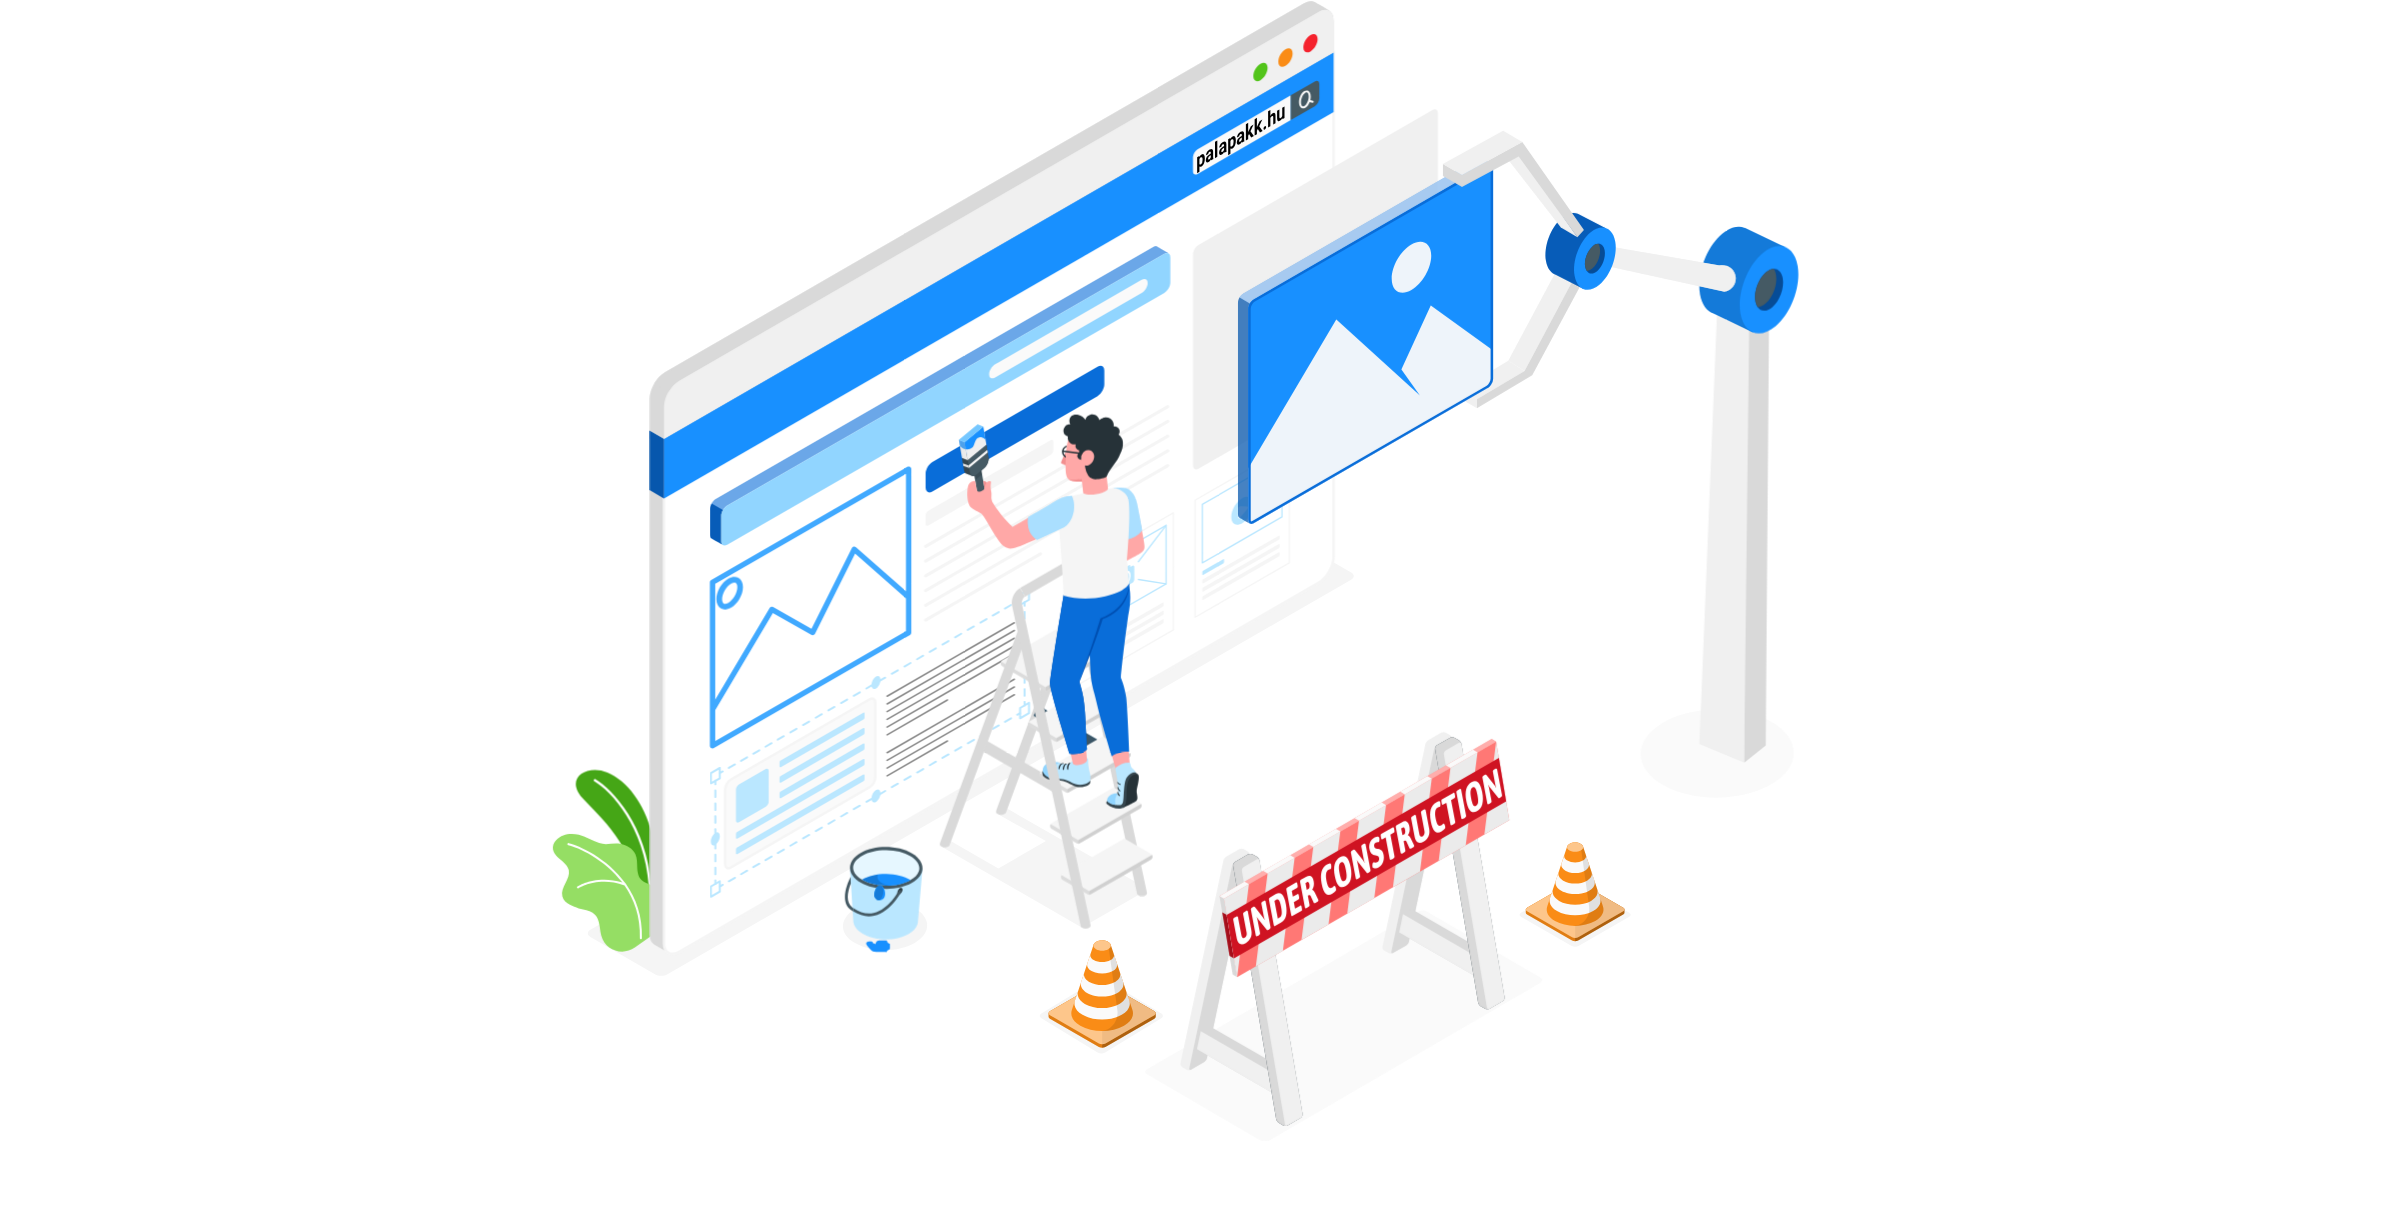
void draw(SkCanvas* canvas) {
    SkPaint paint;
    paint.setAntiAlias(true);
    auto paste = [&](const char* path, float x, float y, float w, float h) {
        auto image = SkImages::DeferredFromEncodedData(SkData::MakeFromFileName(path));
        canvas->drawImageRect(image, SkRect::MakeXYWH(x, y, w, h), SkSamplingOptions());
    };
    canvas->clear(SK_ColorWHITE);
    paste("pic1.png", 552, 1, 1247, 1140);
}
